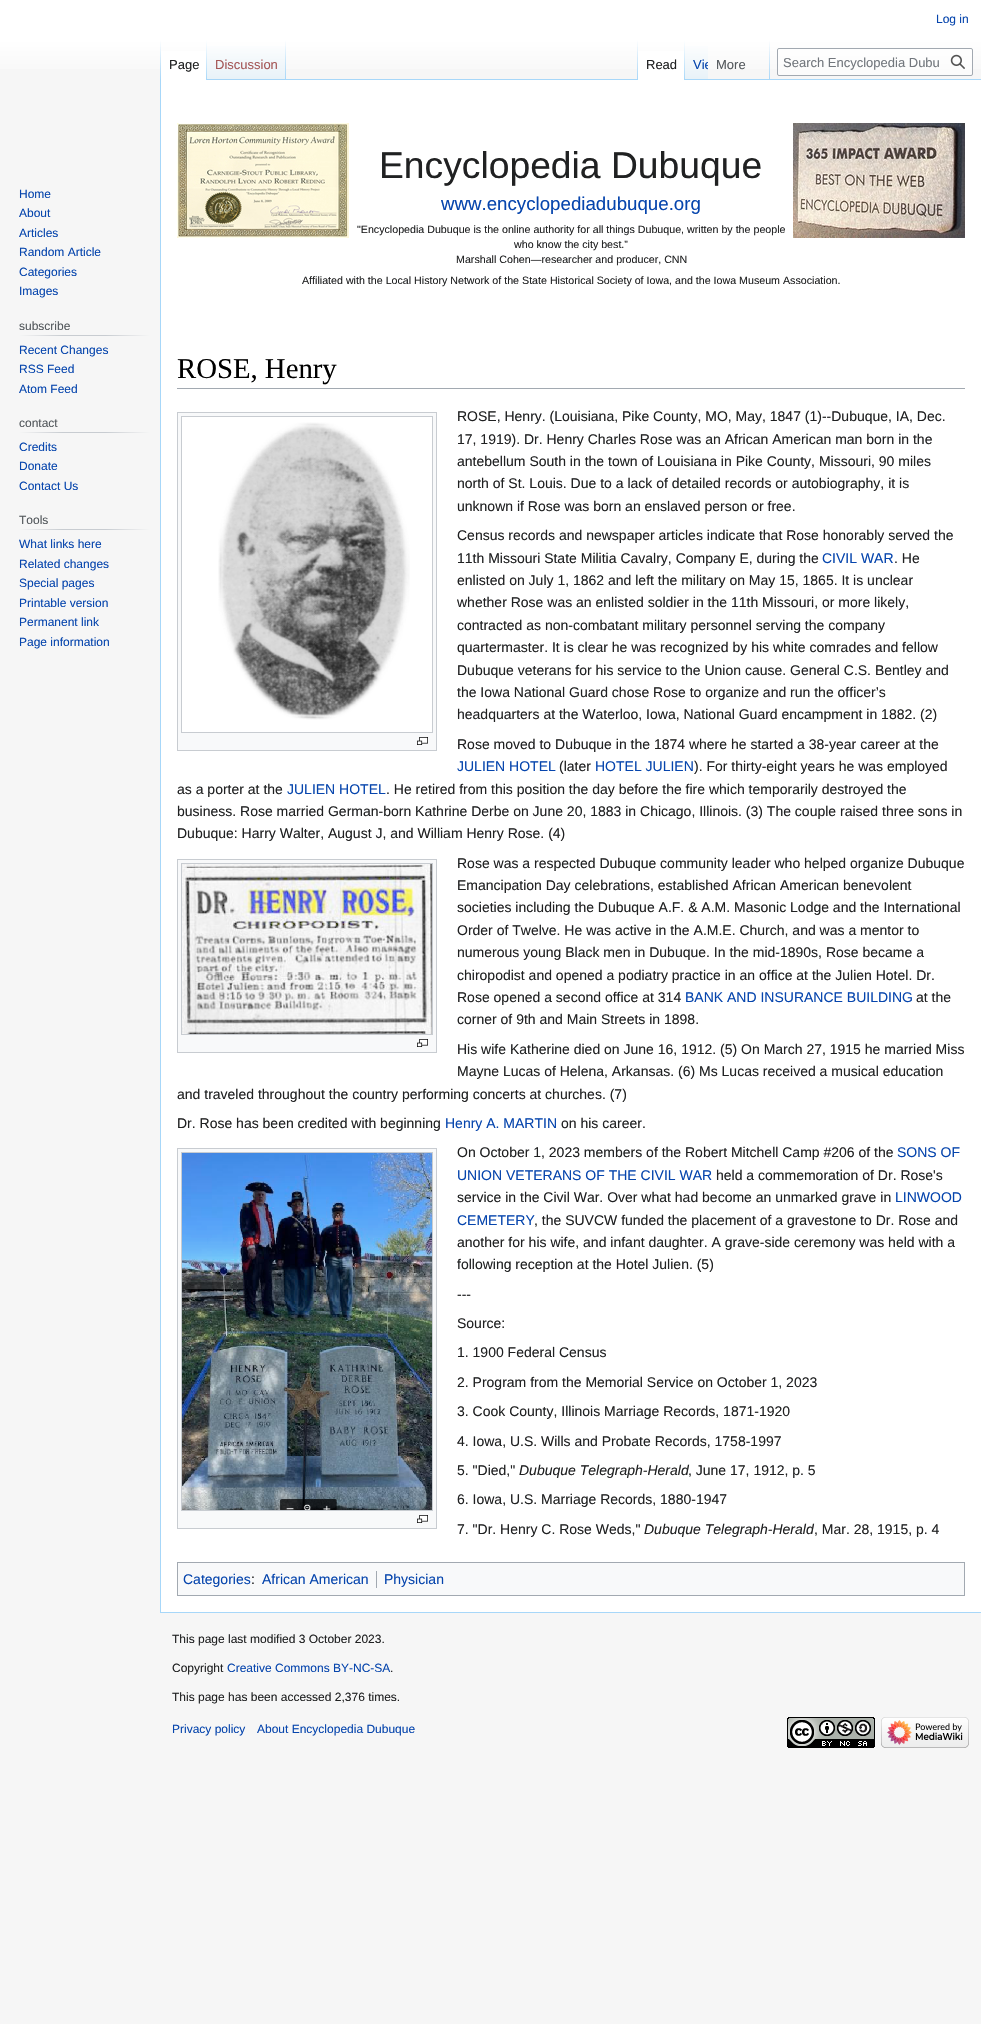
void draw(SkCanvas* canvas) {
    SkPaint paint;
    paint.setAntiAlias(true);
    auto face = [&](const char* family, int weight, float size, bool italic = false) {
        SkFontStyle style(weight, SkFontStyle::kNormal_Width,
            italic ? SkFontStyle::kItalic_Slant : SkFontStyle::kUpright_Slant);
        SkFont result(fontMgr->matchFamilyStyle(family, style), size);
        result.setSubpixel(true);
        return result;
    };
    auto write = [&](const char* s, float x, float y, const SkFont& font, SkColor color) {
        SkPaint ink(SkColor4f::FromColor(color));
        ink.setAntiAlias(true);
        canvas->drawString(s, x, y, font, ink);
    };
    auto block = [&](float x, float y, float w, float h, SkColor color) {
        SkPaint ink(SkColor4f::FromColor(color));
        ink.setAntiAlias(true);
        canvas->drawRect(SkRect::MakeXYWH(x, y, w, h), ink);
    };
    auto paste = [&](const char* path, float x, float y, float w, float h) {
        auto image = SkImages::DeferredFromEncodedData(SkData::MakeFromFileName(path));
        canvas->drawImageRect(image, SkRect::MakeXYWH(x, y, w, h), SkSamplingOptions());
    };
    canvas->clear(SkColorSetRGB(246, 246, 246));
    {
        const SkColor colors[] = {SK_ColorWHITE, SkColorSetRGB(246, 246, 246)};
        const float stops[] = {0.5f, 1};
        const SkPoint ends[] = {{491, 0}, {491, 80}};
        paint.setShader(SkGradientShader::MakeLinear(ends, colors, stops, 2, SkTileMode::kClamp));
        paint.setAlpha(255);
    }
    canvas->drawRect(SkRect::MakeXYWH(0, 0, 981, 69), paint);
    auto kFont1 = face("Liberation Sans", 400, 12);
    write("Log in", 936, 23, kFont1, SkColorSetRGB(6, 69, 173));
    block(160, 1612, 821, 1, SkColorSetRGB(167, 215, 249));
    block(160, 79, 1, 1534, SkColorSetRGB(167, 215, 249));
    {
        const SkColor colors[] = {SkColorSetARGB(0, 167, 215, 249), SkColorSetRGB(167, 215, 249)};
        const float stops[] = {0, 1};
        const SkPoint ends[] = {{161, 40}, {161, 80}};
        paint.setShader(SkGradientShader::MakeLinear(ends, colors, stops, 2, SkTileMode::kClamp));
        paint.setAlpha(255);
    }
    canvas->drawRect(SkRect::MakeXYWH(160, 40, 1, 40), paint);
    block(161, 51, 45, 29, SK_ColorWHITE);
    {
        const SkColor colors[] = {SK_ColorWHITE, SkColorSetRGB(167, 215, 249)};
        const float stops[] = {0, 1};
        const SkPoint ends[] = {{207, 40}, {207, 80}};
        paint.setShader(SkGradientShader::MakeLinear(ends, colors, stops, 2, SkTileMode::kClamp));
        paint.setAlpha(255);
    }
    canvas->drawRect(SkRect::MakeXYWH(206, 40, 1, 40), paint);
    auto kFont2 = face("Liberation Sans", 400, 13);
    write("Page", 169, 69, kFont2, SkColorSetRGB(32, 33, 34));
    {
        const SkColor colors[] = {SkColorSetRGB(119, 193, 246), SkColorSetRGB(232, 242, 248), SK_ColorWHITE};
        const float stops[] = {0, 0.03f, 1};
        const SkPoint ends[] = {{247, 80}, {247, 40}};
        paint.setShader(SkGradientShader::MakeLinear(ends, colors, stops, 3, SkTileMode::kClamp));
        paint.setAlpha(255);
    }
    canvas->drawRect(SkRect::MakeXYWH(207, 46, 79, 34), paint);
    {
        const SkColor colors[] = {SkColorSetARGB(0, 167, 215, 249), SkColorSetRGB(167, 215, 249)};
        const float stops[] = {0, 1};
        const SkPoint ends[] = {{286, 40}, {286, 80}};
        paint.setShader(SkGradientShader::MakeLinear(ends, colors, stops, 2, SkTileMode::kClamp));
        paint.setAlpha(255);
    }
    canvas->drawRect(SkRect::MakeXYWH(285, 40, 1, 40), paint);
    write("Discussion", 215, 69, kFont2, SkColorSetRGB(165, 88, 88));
    block(286, 79, 695, 1, SkColorSetRGB(167, 215, 249));
    {
        const SkColor colors[] = {SkColorSetARGB(0, 167, 215, 249), SkColorSetRGB(167, 215, 249)};
        const float stops[] = {0, 1};
        const SkPoint ends[] = {{638, 40}, {638, 80}};
        paint.setShader(SkGradientShader::MakeLinear(ends, colors, stops, 2, SkTileMode::kClamp));
        paint.setAlpha(255);
    }
    canvas->drawRect(SkRect::MakeXYWH(637, 40, 1, 40), paint);
    block(638, 51, 46, 29, SK_ColorWHITE);
    {
        const SkColor colors[] = {SK_ColorWHITE, SkColorSetRGB(167, 215, 249)};
        const float stops[] = {0, 1};
        const SkPoint ends[] = {{685, 40}, {685, 80}};
        paint.setShader(SkGradientShader::MakeLinear(ends, colors, stops, 2, SkTileMode::kClamp));
        paint.setAlpha(255);
    }
    canvas->drawRect(SkRect::MakeXYWH(684, 40, 1, 40), paint);
    write("Read", 646, 69, kFont2, SkColorSetRGB(32, 33, 34));
    {
        const SkColor colors[] = {SkColorSetRGB(119, 193, 246), SkColorSetRGB(232, 242, 248), SK_ColorWHITE};
        const float stops[] = {0, 0.03f, 1};
        const SkPoint ends[] = {{697, 80}, {697, 40}};
        paint.setShader(SkGradientShader::MakeLinear(ends, colors, stops, 3, SkTileMode::kClamp));
        paint.setAlpha(255);
    }
    canvas->drawRect(SkRect::MakeXYWH(685, 46, 23, 33), paint);
    canvas->save();
    canvas->clipRect(SkRect::MakeXYWH(685, 40, 23, 40));
    write("Vie", 693, 69, kFont2, SkColorSetRGB(6, 69, 173));
    canvas->restore();
    {
        const SkColor colors[] = {SkColorSetARGB(0, 167, 215, 249), SkColorSetRGB(167, 215, 249)};
        const float stops[] = {0, 1};
        const SkPoint ends[] = {{770, 40}, {770, 80}};
        paint.setShader(SkGradientShader::MakeLinear(ends, colors, stops, 2, SkTileMode::kClamp));
        paint.setAlpha(255);
    }
    canvas->drawRect(SkRect::MakeXYWH(769, 40, 1, 40), paint);
    write("More", 716, 69, kFont2, SkColorSetRGB(84, 89, 93));
    paint.setShader(nullptr);
    paint.setColor(SkColorSetARGB(128, 255, 255, 255));
    canvas->drawRoundRect(SkRect::MakeXYWH(777.5f, 48.5f, 195, 27), 1.5f, 1.5f, paint);
    paint.setStyle(SkPaint::kStroke_Style);
    paint.setStrokeWidth(1);
    paint.setColor(SkColorSetRGB(162, 169, 177));
    canvas->drawRoundRect(SkRect::MakeXYWH(777.5f, 48.5f, 195, 27), 1.5f, 1.5f, paint);
    write("Search Encyclopedia Dubu", 783, 67, kFont2, SkColorSetRGB(114, 119, 125));
    paste("pic1.png", 950, 54, 15, 15);
    write("Home", 19, 198, kFont1, SkColorSetRGB(6, 69, 173));
    write("About", 19, 217, kFont1, SkColorSetRGB(6, 69, 173));
    write("Articles", 19, 237, kFont1, SkColorSetRGB(6, 69, 173));
    write("Random Article", 19, 256, kFont1, SkColorSetRGB(6, 69, 173));
    write("Categories", 19, 276, kFont1, SkColorSetRGB(6, 69, 173));
    write("Images", 19, 295, kFont1, SkColorSetRGB(6, 69, 173));
    paint.setStyle(SkPaint::kFill_Style);
    {
        const SkColor colors[] = {SkColorSetRGB(246, 246, 246), SkColorSetRGB(200, 204, 209), SkColorSetRGB(200, 204, 209), SkColorSetRGB(246, 246, 246)};
        const float stops[] = {0, 0.33f, 0.66f, 1};
        const SkPoint ends[] = {{19, 336}, {150, 336}};
        paint.setShader(SkGradientShader::MakeLinear(ends, colors, stops, 4, SkTileMode::kClamp));
        paint.setAlpha(255);
    }
    canvas->drawRect(SkRect::MakeXYWH(19, 335, 131, 1), paint);
    write("subscribe", 19, 330, kFont1, SkColorSetRGB(84, 89, 93));
    write("Recent Changes", 19, 354, kFont1, SkColorSetRGB(6, 69, 173));
    write("RSS Feed", 19, 373, kFont1, SkColorSetRGB(6, 69, 173));
    write("Atom Feed", 19, 393, kFont1, SkColorSetRGB(6, 69, 173));
    {
        const SkColor colors[] = {SkColorSetRGB(246, 246, 246), SkColorSetRGB(200, 204, 209), SkColorSetRGB(200, 204, 209), SkColorSetRGB(246, 246, 246)};
        const float stops[] = {0, 0.33f, 0.66f, 1};
        const SkPoint ends[] = {{19, 433}, {150, 433}};
        paint.setShader(SkGradientShader::MakeLinear(ends, colors, stops, 4, SkTileMode::kClamp));
        paint.setAlpha(255);
    }
    canvas->drawRect(SkRect::MakeXYWH(19, 432, 131, 1), paint);
    write("contact", 19, 427, kFont1, SkColorSetRGB(84, 89, 93));
    write("Credits", 19, 451, kFont1, SkColorSetRGB(6, 69, 173));
    write("Donate", 19, 470, kFont1, SkColorSetRGB(6, 69, 173));
    write("Contact Us", 19, 490, kFont1, SkColorSetRGB(6, 69, 173));
    {
        const SkColor colors[] = {SkColorSetRGB(246, 246, 246), SkColorSetRGB(200, 204, 209), SkColorSetRGB(200, 204, 209), SkColorSetRGB(246, 246, 246)};
        const float stops[] = {0, 0.33f, 0.66f, 1};
        const SkPoint ends[] = {{19, 530}, {150, 530}};
        paint.setShader(SkGradientShader::MakeLinear(ends, colors, stops, 4, SkTileMode::kClamp));
        paint.setAlpha(255);
    }
    canvas->drawRect(SkRect::MakeXYWH(19, 529, 131, 1), paint);
    write("Tools", 19, 524, kFont1, SkColorSetRGB(84, 89, 93));
    write("What links here", 19, 548, kFont1, SkColorSetRGB(6, 69, 173));
    write("Related changes", 19, 568, kFont1, SkColorSetRGB(6, 69, 173));
    write("Special pages", 19, 587, kFont1, SkColorSetRGB(6, 69, 173));
    write("Printable version", 19, 607, kFont1, SkColorSetRGB(6, 69, 173));
    write("Permanent link", 19, 626, kFont1, SkColorSetRGB(6, 69, 173));
    write("Page information", 19, 646, kFont1, SkColorSetRGB(6, 69, 173));
    block(161, 80, 820, 1532, SK_ColorWHITE);
    paste("pic2.png", 177, 123, 172, 115);
    auto kFont3 = face("Liberation Sans", 400, 37.25f);
    write("Encyclopedia Dubuque", 379, 178, kFont3, SkColorSetRGB(32, 33, 34));
    paste("pic3.png", 793, 123, 172, 115);
    auto kFont4 = face("Liberation Sans", 400, 18.7f);
    write("www.encyclopediadubuque.org", 441, 210, kFont4, SkColorSetRGB(6, 69, 173));
    auto kFont5 = face("Liberation Sans", 400, 10.67f);
    write("\"Encyclopedia Dubuque is the online authority for all things Dubuque, written by the people", 357, 233, kFont5, SkColorSetRGB(32, 33, 34));
    write("who know the city best.”", 514, 248, kFont5, SkColorSetRGB(32, 33, 34));
    write("Marshall Cohen—researcher and producer, CNN", 456, 263, kFont5, SkColorSetRGB(32, 33, 34));
    write("Affiliated with the Local History Network of the State Historical Society of Iowa, and the Iowa Museum Association.", 302, 284, kFont5, SkColorSetRGB(32, 33, 34));
    block(177, 388, 788, 1, SkColorSetRGB(162, 169, 177));
    auto kFont6 = face("Liberation Serif", 400, 28.75f);
    write("ROSE, Henry", 177, 378, kFont6, SK_ColorBLACK);
    paint.setShader(nullptr);
    paint.setColor(SkColorSetRGB(248, 249, 250));
    canvas->drawRect(SkRect::MakeXYWH(177.5f, 412.5f, 259, 338), paint);
    paint.setStyle(SkPaint::kStroke_Style);
    paint.setColor(SkColorSetRGB(200, 204, 209));
    canvas->drawRect(SkRect::MakeXYWH(177.5f, 412.5f, 259, 338), paint);
    paint.setStyle(SkPaint::kFill_Style);
    paint.setColor(SK_ColorWHITE);
    canvas->drawRect(SkRect::MakeXYWH(181.5f, 416.5f, 251, 316), paint);
    paint.setStyle(SkPaint::kStroke_Style);
    paint.setColor(SkColorSetRGB(200, 204, 209));
    canvas->drawRect(SkRect::MakeXYWH(181.5f, 416.5f, 251, 316), paint);
    paste("pic4.png", 218, 422, 192, 298);
    paste("pic5.png", 417, 737, 11, 8);
    auto kFont7 = face("Liberation Sans", 400, 14);
    write("ROSE, Henry. (Louisiana, Pike County, MO, May, 1847 (1)--Dubuque, IA, Dec.", 457, 421, kFont7, SkColorSetRGB(32, 33, 34));
    write("17, 1919). Dr. Henry Charles Rose was an African American man born in the", 457, 444, kFont7, SkColorSetRGB(32, 33, 34));
    write("antebellum South in the town of Louisiana in Pike County, Missouri, 90 miles", 457, 466, kFont7, SkColorSetRGB(32, 33, 34));
    write("north of St. Louis. Due to a lack of detailed records or autobiography, it is", 457, 488, kFont7, SkColorSetRGB(32, 33, 34));
    write("unknown if Rose was born an enslaved person or free.", 457, 511, kFont7, SkColorSetRGB(32, 33, 34));
    write("Census records and newspaper articles indicate that Rose honorably served the", 457, 540, kFont7, SkColorSetRGB(32, 33, 34));
    write("11th Missouri State Militia Cavalry, Company E, during the", 457, 563, kFont7, SkColorSetRGB(32, 33, 34));
    write("CIVIL WAR", 822, 563, kFont7, SkColorSetRGB(6, 69, 173));
    write(". He", 894, 563, kFont7, SkColorSetRGB(32, 33, 34));
    write("enlisted on July 1, 1862 and left the military on May 15, 1865. It is unclear", 457, 585, kFont7, SkColorSetRGB(32, 33, 34));
    write("whether Rose was an enlisted soldier in the 11th Missouri, or more likely,", 457, 607, kFont7, SkColorSetRGB(32, 33, 34));
    write("contracted as non-combatant military personnel serving the company", 457, 630, kFont7, SkColorSetRGB(32, 33, 34));
    write("quartermaster. It is clear he was recognized by his white comrades and fellow", 457, 652, kFont7, SkColorSetRGB(32, 33, 34));
    write("Dubuque veterans for his service to the Union cause. General C.S. Bentley and", 457, 675, kFont7, SkColorSetRGB(32, 33, 34));
    write("the Iowa National Guard chose Rose to organize and run the officer’s", 457, 697, kFont7, SkColorSetRGB(32, 33, 34));
    write("headquarters at the Waterloo, Iowa, National Guard encampment in 1882. (2)", 457, 719, kFont7, SkColorSetRGB(32, 33, 34));
    write("Rose moved to Dubuque in the 1874 where he started a 38-year career at the", 457, 749, kFont7, SkColorSetRGB(32, 33, 34));
    write("JULIEN HOTEL", 457, 771, kFont7, SkColorSetRGB(6, 69, 173));
    write("(later", 559, 771, kFont7, SkColorSetRGB(32, 33, 34));
    write("HOTEL JULIEN", 595, 771, kFont7, SkColorSetRGB(6, 69, 173));
    write("). For thirty-eight years he was employed", 694, 771, kFont7, SkColorSetRGB(32, 33, 34));
    write("as a porter at the", 177, 794, kFont7, SkColorSetRGB(32, 33, 34));
    write("JULIEN HOTEL", 287, 794, kFont7, SkColorSetRGB(6, 69, 173));
    write(". He retired from this position the day before the fire which temporarily destroyed the", 386, 794, kFont7, SkColorSetRGB(32, 33, 34));
    write("business. Rose married German-born Kathrine Derbe on June 20, 1883 in Chicago, Illinois. (3) The couple raised three sons in", 177, 816, kFont7, SkColorSetRGB(32, 33, 34));
    write("Dubuque: Harry Walter, August J, and William Henry Rose. (4)", 177, 838, kFont7, SkColorSetRGB(32, 33, 34));
    paint.setStyle(SkPaint::kFill_Style);
    paint.setColor(SkColorSetRGB(248, 249, 250));
    canvas->drawRect(SkRect::MakeXYWH(177.5f, 859.5f, 259, 193), paint);
    paint.setStyle(SkPaint::kStroke_Style);
    paint.setColor(SkColorSetRGB(200, 204, 209));
    canvas->drawRect(SkRect::MakeXYWH(177.5f, 859.5f, 259, 193), paint);
    canvas->drawRect(SkRect::MakeXYWH(181.5f, 863.5f, 251, 171), paint);
    paste("pic6.png", 182, 864, 250, 170);
    paste("pic5.png", 417, 1039, 11, 8);
    write("Rose was a respected Dubuque community leader who helped organize Dubuque", 457, 868, kFont7, SkColorSetRGB(32, 33, 34));
    write("Emancipation Day celebrations, established African American benevolent", 457, 890, kFont7, SkColorSetRGB(32, 33, 34));
    write("societies including the Dubuque A.F. & A.M. Masonic Lodge and the International", 457, 912, kFont7, SkColorSetRGB(32, 33, 34));
    write("Order of Twelve. He was active in the A.M.E. Church, and was a mentor to", 457, 935, kFont7, SkColorSetRGB(32, 33, 34));
    write("numerous young Black men in Dubuque. In the mid-1890s, Rose became a", 457, 957, kFont7, SkColorSetRGB(32, 33, 34));
    write("chiropodist and opened a podiatry practice in an office at the Julien Hotel. Dr.", 457, 980, kFont7, SkColorSetRGB(32, 33, 34));
    write("Rose opened a second office at 314", 457, 1002, kFont7, SkColorSetRGB(32, 33, 34));
    write("BANK AND INSURANCE BUILDING", 685, 1002, kFont7, SkColorSetRGB(6, 69, 173));
    write("at the", 916, 1002, kFont7, SkColorSetRGB(32, 33, 34));
    write("corner of 9th and Main Streets in 1898.", 457, 1024, kFont7, SkColorSetRGB(32, 33, 34));
    write("His wife Katherine died on June 16, 1912. (5) On March 27, 1915 he married Miss", 457, 1054, kFont7, SkColorSetRGB(32, 33, 34));
    write("Mayne Lucas of Helena, Arkansas. (6) Ms Lucas received a musical education", 457, 1076, kFont7, SkColorSetRGB(32, 33, 34));
    write("and traveled throughout the country performing concerts at churches. (7)", 177, 1099, kFont7, SkColorSetRGB(32, 33, 34));
    write("Dr. Rose has been credited with beginning", 177, 1128, kFont7, SkColorSetRGB(32, 33, 34));
    write("Henry A. MARTIN", 445, 1128, kFont7, SkColorSetRGB(6, 69, 173));
    write("on his career.", 561, 1128, kFont7, SkColorSetRGB(32, 33, 34));
    paint.setStyle(SkPaint::kFill_Style);
    paint.setColor(SkColorSetRGB(248, 249, 250));
    canvas->drawRect(SkRect::MakeXYWH(177.5f, 1148.5f, 259, 380), paint);
    paint.setStyle(SkPaint::kStroke_Style);
    paint.setColor(SkColorSetRGB(200, 204, 209));
    canvas->drawRect(SkRect::MakeXYWH(177.5f, 1148.5f, 259, 380), paint);
    canvas->drawRect(SkRect::MakeXYWH(181.5f, 1152.5f, 251, 358), paint);
    paste("pic7.png", 182, 1153, 250, 357);
    paste("pic5.png", 417, 1515, 11, 8);
    write("On October 1, 2023 members of the Robert Mitchell Camp #206 of the", 457, 1157, kFont7, SkColorSetRGB(32, 33, 34));
    write("SONS OF", 897, 1157, kFont7, SkColorSetRGB(6, 69, 173));
    write("UNION VETERANS OF THE CIVIL WAR", 457, 1180, kFont7, SkColorSetRGB(6, 69, 173));
    write("held a commemoration of Dr. Rose's", 716, 1180, kFont7, SkColorSetRGB(32, 33, 34));
    write("service in the Civil War. Over what had become an unmarked grave in", 457, 1202, kFont7, SkColorSetRGB(32, 33, 34));
    write("LINWOOD", 895, 1202, kFont7, SkColorSetRGB(6, 69, 173));
    write("CEMETERY", 457, 1225, kFont7, SkColorSetRGB(6, 69, 173));
    write(", the SUVCW funded the placement of a gravestone to Dr. Rose and", 534, 1225, kFont7, SkColorSetRGB(32, 33, 34));
    write("another for his wife, and infant daughter. A grave-side ceremony was held with a", 457, 1247, kFont7, SkColorSetRGB(32, 33, 34));
    write("following reception at the Hotel Julien. (5)", 457, 1269, kFont7, SkColorSetRGB(32, 33, 34));
    write("---", 457, 1299, kFont7, SkColorSetRGB(32, 33, 34));
    write("Source:", 457, 1328, kFont7, SkColorSetRGB(32, 33, 34));
    write("1. 1900 Federal Census", 457, 1357, kFont7, SkColorSetRGB(32, 33, 34));
    write("2. Program from the Memorial Service on October 1, 2023", 457, 1387, kFont7, SkColorSetRGB(32, 33, 34));
    write("3. Cook County, Illinois Marriage Records, 1871-1920", 457, 1416, kFont7, SkColorSetRGB(32, 33, 34));
    write("4. Iowa, U.S. Wills and Probate Records, 1758-1997", 457, 1446, kFont7, SkColorSetRGB(32, 33, 34));
    write("5. \"Died,\"", 457, 1475, kFont7, SkColorSetRGB(32, 33, 34));
    auto kFont8 = face("Liberation Sans", 400, 14, true);
    write("Dubuque Telegraph-Herald", 519, 1475, kFont8, SkColorSetRGB(32, 33, 34));
    write(", June 17, 1912, p. 5", 688, 1475, kFont7, SkColorSetRGB(32, 33, 34));
    write("6. Iowa, U.S. Marriage Records, 1880-1947", 457, 1504, kFont7, SkColorSetRGB(32, 33, 34));
    write("7. \"Dr. Henry C. Rose Weds,\"", 457, 1534, kFont7, SkColorSetRGB(32, 33, 34));
    write("Dubuque Telegraph-Herald", 644, 1534, kFont8, SkColorSetRGB(32, 33, 34));
    write(", Mar. 28, 1915, p. 4", 814, 1534, kFont7, SkColorSetRGB(32, 33, 34));
    paint.setStyle(SkPaint::kFill_Style);
    paint.setColor(SkColorSetRGB(248, 249, 250));
    canvas->drawRect(SkRect::MakeXYWH(177.5f, 1562.5f, 787, 33), paint);
    paint.setStyle(SkPaint::kStroke_Style);
    paint.setColor(SkColorSetRGB(162, 169, 177));
    canvas->drawRect(SkRect::MakeXYWH(177.5f, 1562.5f, 787, 33), paint);
    write("Categories", 183, 1584, kFont7, SkColorSetRGB(6, 69, 173));
    write(":", 251, 1584, kFont7, SkColorSetRGB(32, 33, 34));
    write("African American", 262, 1584, kFont7, SkColorSetRGB(6, 69, 173));
    block(376, 1571, 1, 17, SkColorSetRGB(162, 169, 177));
    write("Physician", 384, 1584, kFont7, SkColorSetRGB(6, 69, 173));
    write("This page last modified 3 October 2023.", 172, 1643, kFont1, SkColorSetRGB(32, 33, 34));
    write("Copyright", 172, 1672, kFont1, SkColorSetRGB(32, 33, 34));
    write("Creative Commons BY-NC-SA", 227, 1672, kFont1, SkColorSetRGB(6, 69, 173));
    write(".", 390, 1672, kFont1, SkColorSetRGB(32, 33, 34));
    write("This page has been accessed 2,376 times.", 172, 1701, kFont1, SkColorSetRGB(32, 33, 34));
    write("Privacy policy", 172, 1733, kFont1, SkColorSetRGB(6, 69, 173));
    write("About Encyclopedia Dubuque", 257, 1733, kFont1, SkColorSetRGB(6, 69, 173));
    paste("pic8.png", 787, 1717, 88, 31);
    paste("pic9.png", 881, 1717, 88, 31);
}
